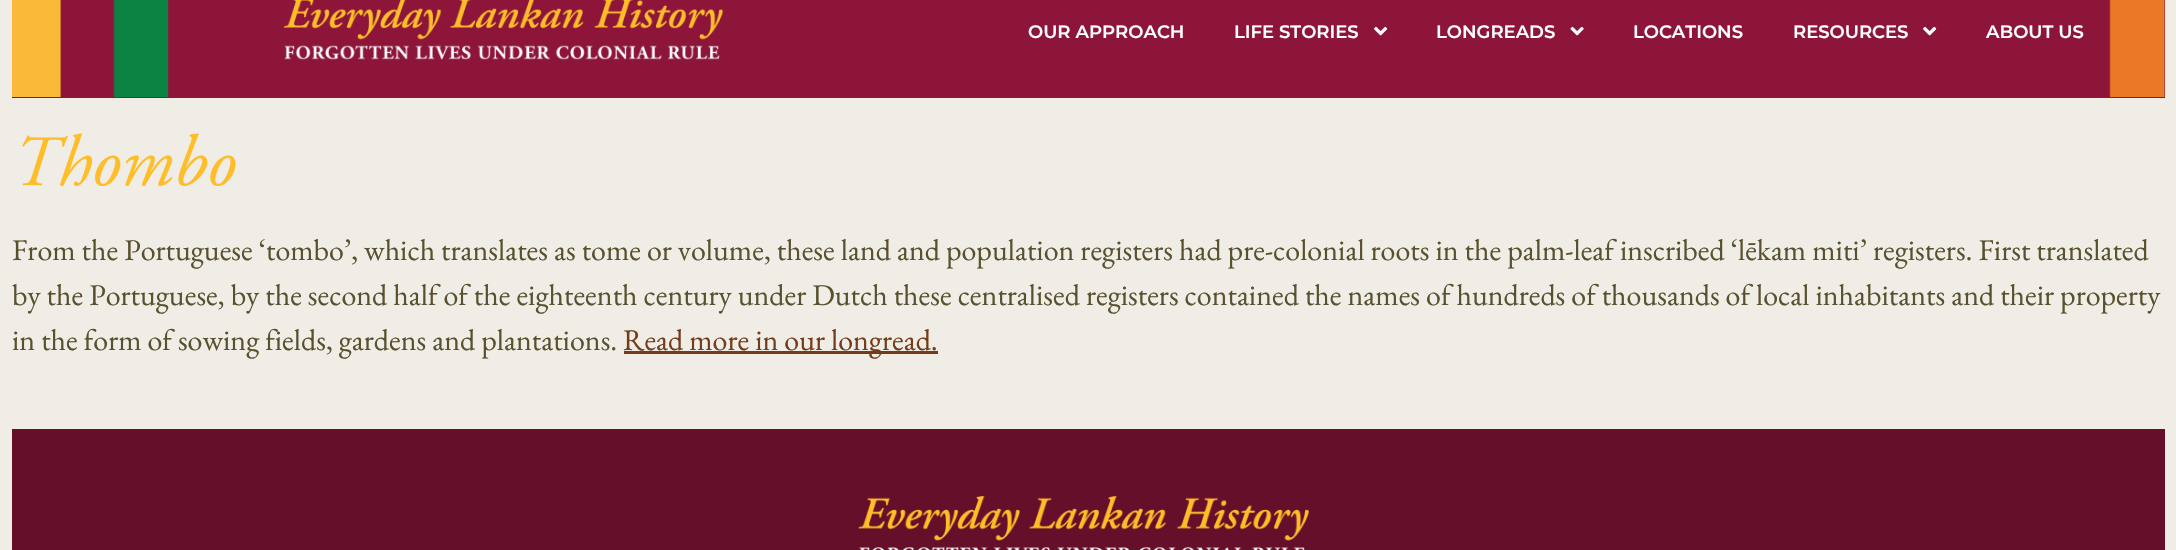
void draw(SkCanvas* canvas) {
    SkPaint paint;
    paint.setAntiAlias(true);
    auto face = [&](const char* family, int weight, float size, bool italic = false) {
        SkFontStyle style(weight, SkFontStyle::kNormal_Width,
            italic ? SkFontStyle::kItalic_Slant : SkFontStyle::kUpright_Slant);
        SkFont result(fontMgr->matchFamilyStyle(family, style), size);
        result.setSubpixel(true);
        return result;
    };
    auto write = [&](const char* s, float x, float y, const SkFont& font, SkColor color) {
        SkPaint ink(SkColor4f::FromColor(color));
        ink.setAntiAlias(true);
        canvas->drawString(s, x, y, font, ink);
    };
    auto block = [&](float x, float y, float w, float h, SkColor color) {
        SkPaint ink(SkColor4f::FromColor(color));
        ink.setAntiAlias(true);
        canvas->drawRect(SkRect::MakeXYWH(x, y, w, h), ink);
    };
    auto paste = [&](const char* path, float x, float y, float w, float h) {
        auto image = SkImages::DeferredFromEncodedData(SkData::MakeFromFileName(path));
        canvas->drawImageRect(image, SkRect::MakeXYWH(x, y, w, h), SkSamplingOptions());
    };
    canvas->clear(SkColorSetRGB(239, 237, 229));
    block(12, 0, 2153, 98, SkColorSetRGB(141, 21, 58));
    paste("pic1.png", 12, 0, 2153, 97);
    paste("pic2.png", 283, 0, 440, 60);
    auto kFont1 = face("Montserrat", 600, 18);
    write("OUR APPROACH", 1028, 38, kFont1, SK_ColorWHITE);
    write("LIFE STORIES", 1234, 38, kFont1, SK_ColorWHITE);
    paste("pic3.png", 1374, 26, 14, 10);
    write("LONGREADS", 1436, 38, kFont1, SK_ColorWHITE);
    paste("pic4.png", 1570, 26, 14, 10);
    write("LOCATIONS", 1633, 38, kFont1, SK_ColorWHITE);
    write("RESOURCES", 1793, 38, kFont1, SK_ColorWHITE);
    paste("pic3.png", 1923, 26, 14, 10);
    write("ABOUT US", 1986, 38, kFont1, SK_ColorWHITE);
    auto kFont2 = face("Adobe Garamond", 400, 72, true);
    write("Thombo", 12, 185, kFont2, SkColorSetRGB(255, 190, 41));
    auto kFont3 = face("EB Garamond", 400, 30);
    write("From the Portuguese ‘tombo’, which translates as tome or volume, these land and population registers had pre-colonial roots in the palm-leaf inscribed ‘lēkam miti’ registers. First translated", 12, 260, kFont3, SkColorSetRGB(88, 81, 46));
    write("by the Portuguese, by the second half of the eighteenth century under Dutch these centralised registers contained the names of hundreds of thousands of local inhabitants and their property", 12, 305, kFont3, SkColorSetRGB(88, 81, 46));
    write("in the form of sowing fields, gardens and plantations.", 12, 350, kFont3, SkColorSetRGB(88, 81, 46));
    block(624, 351, 314, 3, SkColorSetRGB(116, 60, 27));
    write("Read more in our longread.", 623, 350, kFont3, SkColorSetRGB(116, 60, 27));
    block(12, 429, 2153, 121, SkColorSetRGB(102, 15, 42));
    paste("pic5.png", 858, 495, 451, 55);
}
